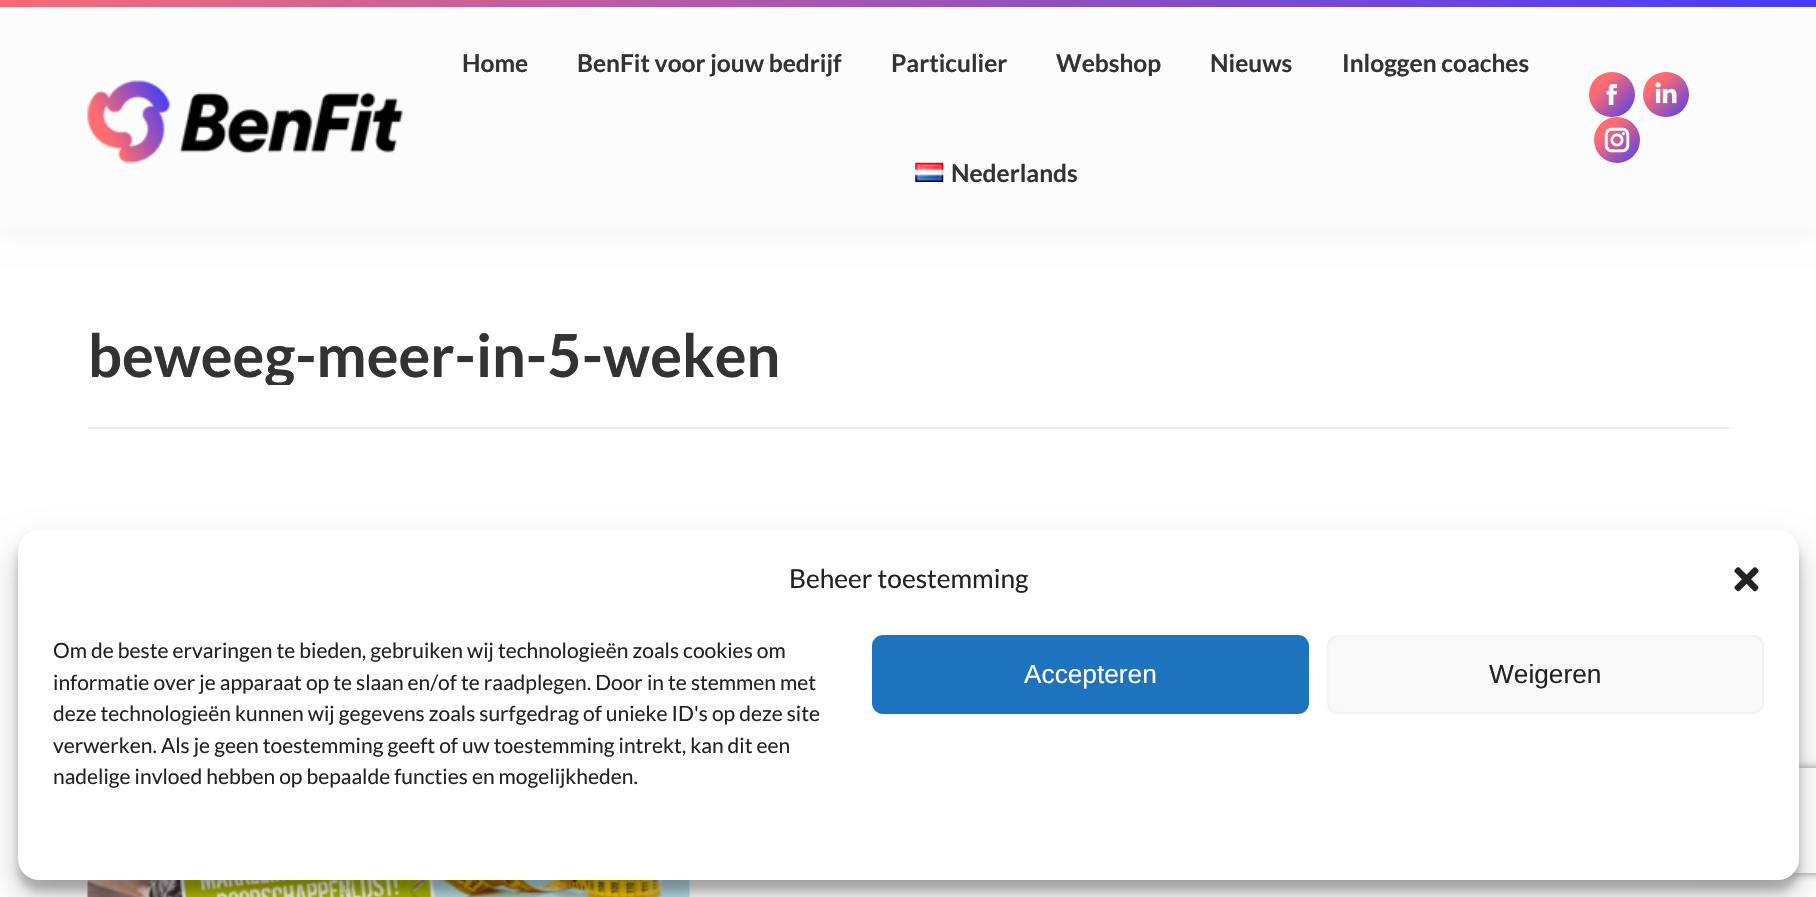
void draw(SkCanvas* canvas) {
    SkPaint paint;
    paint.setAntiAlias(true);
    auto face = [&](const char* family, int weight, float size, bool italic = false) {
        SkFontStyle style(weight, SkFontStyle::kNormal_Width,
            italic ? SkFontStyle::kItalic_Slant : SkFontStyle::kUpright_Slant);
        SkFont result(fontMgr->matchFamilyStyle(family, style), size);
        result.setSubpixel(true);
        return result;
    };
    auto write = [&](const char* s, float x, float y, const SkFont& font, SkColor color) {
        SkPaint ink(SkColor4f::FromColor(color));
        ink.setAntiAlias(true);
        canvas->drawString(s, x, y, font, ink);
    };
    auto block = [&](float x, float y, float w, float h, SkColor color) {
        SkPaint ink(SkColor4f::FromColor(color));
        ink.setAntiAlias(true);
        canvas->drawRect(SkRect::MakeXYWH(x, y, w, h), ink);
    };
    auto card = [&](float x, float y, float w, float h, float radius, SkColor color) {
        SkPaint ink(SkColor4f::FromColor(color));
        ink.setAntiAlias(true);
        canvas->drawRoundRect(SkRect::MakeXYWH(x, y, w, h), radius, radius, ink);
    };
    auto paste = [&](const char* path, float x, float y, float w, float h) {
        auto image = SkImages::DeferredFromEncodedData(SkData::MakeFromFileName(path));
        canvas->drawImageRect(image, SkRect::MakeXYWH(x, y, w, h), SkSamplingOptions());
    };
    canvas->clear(SK_ColorWHITE);
    paste("pic1.png", 0, 0, 1816, 7);
    canvas->save();
    canvas->clipRect(SkRect::MakeXYWH(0, 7, 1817, 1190));
    paint.setColor(SkColorSetARGB(18, 0, 0, 0));
    paint.setMaskFilter(SkMaskFilter::MakeBlur(kNormal_SkBlurStyle, 13));
    canvas->drawRect(SkRect::MakeXYWH(-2, 5, 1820, 224), paint);
    paint.setMaskFilter(nullptr);
    canvas->restore();
    block(0, 7, 1816, 221, SkColorSetRGB(252, 252, 252));
    paste("pic2.png", 87, 80, 316, 83);
    auto kFont1 = face("Lato", 700, 24.5f);
    write("Home", 462, 72, kFont1, SkColorSetRGB(51, 51, 51));
    write("BenFit voor jouw bedrijf", 577, 72, kFont1, SkColorSetRGB(51, 51, 51));
    write("Particulier", 891, 72, kFont1, SkColorSetRGB(51, 51, 51));
    write("Webshop", 1056, 72, kFont1, SkColorSetRGB(51, 51, 51));
    write("Nieuws", 1210, 72, kFont1, SkColorSetRGB(51, 51, 51));
    write("Inloggen coaches", 1342, 72, kFont1, SkColorSetRGB(51, 51, 51));
    paste("pic3.png", 915, 162, 29, 20);
    write("Nederlands", 951, 182, kFont1, SkColorSetRGB(51, 51, 51));
    {
        const SkColor colors[] = {SkColorSetRGB(255, 108, 113), SkColorSetRGB(78, 63, 241)};
        const float stops[] = {0.28f, 1};
        const SkPoint ends[] = {{1589, 72}, {1635, 117}};
        paint.setShader(SkGradientShader::MakeLinear(ends, colors, stops, 2, SkTileMode::kClamp));
        paint.setAlpha(255);
    }
    canvas->drawRoundRect(SkRect::MakeXYWH(1589, 72, 46, 45), 22.5f, 22.5f, paint);
    paste("pic4.png", 1606, 84, 12, 21);
    {
        const SkColor colors[] = {SkColorSetRGB(255, 108, 113), SkColorSetRGB(78, 63, 241)};
        const float stops[] = {0.28f, 1};
        const SkPoint ends[] = {{1643, 72}, {1689, 117}};
        paint.setShader(SkGradientShader::MakeLinear(ends, colors, stops, 2, SkTileMode::kClamp));
        paint.setAlpha(255);
    }
    canvas->drawRoundRect(SkRect::MakeXYWH(1643, 72, 46, 45), 22.5f, 22.5f, paint);
    paste("pic5.png", 1655, 82, 22, 22);
    {
        const SkColor colors[] = {SkColorSetRGB(255, 108, 113), SkColorSetRGB(78, 63, 241)};
        const float stops[] = {0.28f, 1};
        const SkPoint ends[] = {{1594, 117}, {1640, 163}};
        paint.setShader(SkGradientShader::MakeLinear(ends, colors, stops, 2, SkTileMode::kClamp));
        paint.setAlpha(255);
    }
    canvas->drawCircle(1617, 140, 23, paint);
    paste("pic6.png", 1604, 127, 26, 26);
    canvas->save();
    canvas->clipRect(SkRect::MakeXYWH(88, 326, 693, 59));
    auto kFont2 = face("Lato", 700, 59.5f);
    write("beweeg-meer-in-5-weken", 88, 377, kFont2, SkColorSetRGB(51, 51, 51));
    canvas->restore();
    block(88, 427, 1641, 2, SkColorSetRGB(233, 233, 233));
    paste("pic7.png", 87, 880, 603, 17);
    paint.setShader(nullptr);
    paint.setColor(SkColorSetARGB(59, 0, 0, 0));
    paint.setMaskFilter(SkMaskFilter::MakeBlur(kNormal_SkBlurStyle, 5));
    canvas->drawRoundRect(SkRect::MakeXYWH(18, 541, 1781, 350), 21, 21, paint);
    paint.setMaskFilter(nullptr);
    paint.setColor(SkColorSetARGB(48, 0, 0, 0));
    paint.setMaskFilter(SkMaskFilter::MakeBlur(kNormal_SkBlurStyle, 17.5f));
    canvas->drawRoundRect(SkRect::MakeXYWH(18, 548, 1781, 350), 21, 21, paint);
    paint.setMaskFilter(nullptr);
    canvas->save();
    canvas->clipPath(SkPathBuilder(SkPathFillType::kEvenOdd).moveTo(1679, 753).lineTo(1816, 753).lineTo(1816, 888).lineTo(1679, 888).close().moveTo(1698, 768).lineTo(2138, 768).cubicTo(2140, 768, 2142, 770, 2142, 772).lineTo(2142, 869).cubicTo(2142, 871, 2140, 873, 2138, 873).lineTo(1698, 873).cubicTo(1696, 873, 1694, 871, 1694, 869).lineTo(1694, 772).cubicTo(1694, 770, 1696, 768, 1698, 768).close().detach(), true);
    paint.setColor(SkColorSetRGB(128, 128, 128));
    paint.setMaskFilter(SkMaskFilter::MakeBlur(kNormal_SkBlurStyle, 4.5f));
    canvas->drawRoundRect(SkRect::MakeXYWH(1694, 768, 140, 105), 4, 4, paint);
    paint.setMaskFilter(nullptr);
    canvas->restore();
    card(18, 530, 1781, 350, 21, SK_ColorWHITE);
    auto kFont3 = face("Lato", 400, 26.25f);
    write("Beheer toestemming", 789, 588, kFont3, SkColorSetRGB(34, 34, 34));
    paste("pic8.png", 1734, 567, 25, 25);
    auto kFont4 = face("Lato", 400, 21);
    write("Om de beste ervaringen te bieden, gebruiken wij technologieën zoals cookies om", 53, 658, kFont4, SkColorSetRGB(34, 34, 34));
    write("informatie over je apparaat op te slaan en/of te raadplegen. Door in te stemmen met", 53, 690, kFont4, SkColorSetRGB(34, 34, 34));
    write("deze technologieën kunnen wij gegevens zoals surfgedrag of unieke ID's op deze site", 53, 721, kFont4, SkColorSetRGB(34, 34, 34));
    write("verwerken. Als je geen toestemming geeft of uw toestemming intrekt, kan dit een", 53, 753, kFont4, SkColorSetRGB(34, 34, 34));
    write("nadelige invloed hebben op bepaalde functies en mogelijkheden.", 53, 784, kFont4, SkColorSetRGB(34, 34, 34));
    paint.setColor(SkColorSetRGB(30, 115, 190));
    canvas->drawRoundRect(SkRect::MakeXYWH(873, 636, 435, 77), 10, 10, paint);
    paint.setStyle(SkPaint::kStroke_Style);
    paint.setStrokeWidth(2);
    canvas->drawRoundRect(SkRect::MakeXYWH(873, 636, 435, 77), 10, 10, paint);
    auto kFont5 = face("Liberation Sans", 400, 26.25f);
    write("Accepteren", 1024, 683, kFont5, SK_ColorWHITE);
    paint.setStyle(SkPaint::kFill_Style);
    paint.setColor(SkColorSetRGB(249, 249, 249));
    canvas->drawRoundRect(SkRect::MakeXYWH(1328, 636, 435, 77), 10, 10, paint);
    paint.setStyle(SkPaint::kStroke_Style);
    paint.setColor(SkColorSetRGB(242, 242, 242));
    canvas->drawRoundRect(SkRect::MakeXYWH(1328, 636, 435, 77), 10, 10, paint);
    write("Weigeren", 1489, 683, kFont5, SkColorSetRGB(34, 34, 34));
}
